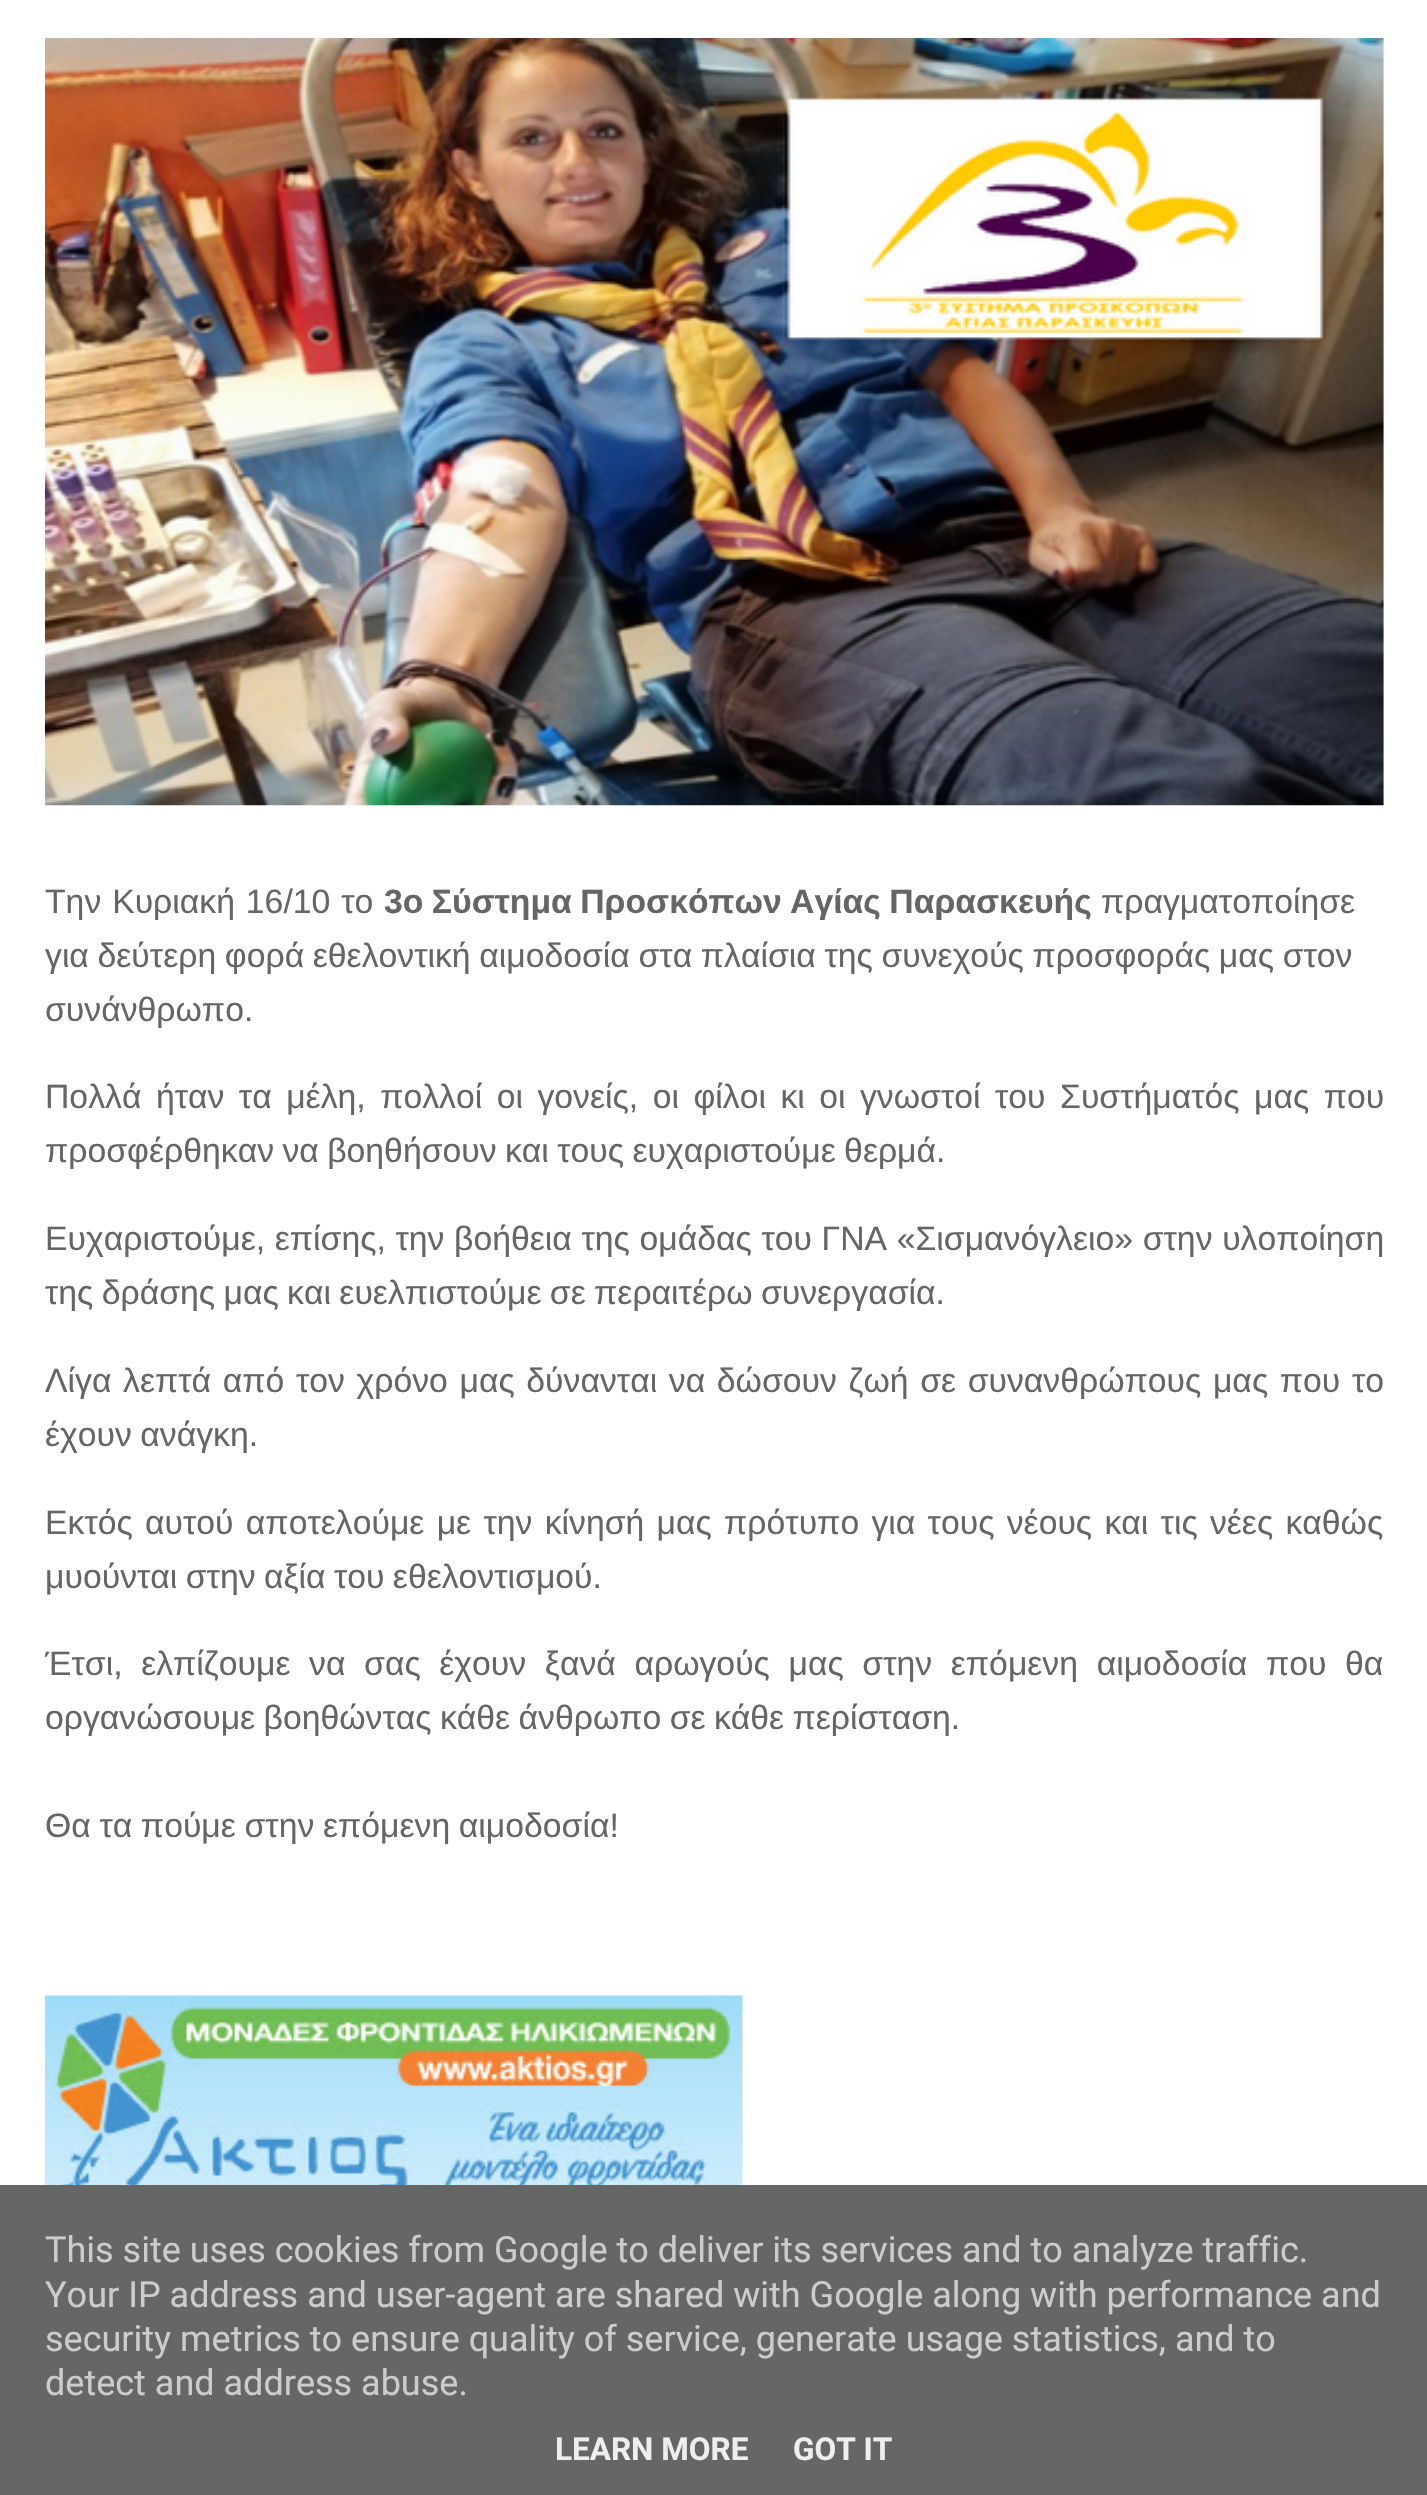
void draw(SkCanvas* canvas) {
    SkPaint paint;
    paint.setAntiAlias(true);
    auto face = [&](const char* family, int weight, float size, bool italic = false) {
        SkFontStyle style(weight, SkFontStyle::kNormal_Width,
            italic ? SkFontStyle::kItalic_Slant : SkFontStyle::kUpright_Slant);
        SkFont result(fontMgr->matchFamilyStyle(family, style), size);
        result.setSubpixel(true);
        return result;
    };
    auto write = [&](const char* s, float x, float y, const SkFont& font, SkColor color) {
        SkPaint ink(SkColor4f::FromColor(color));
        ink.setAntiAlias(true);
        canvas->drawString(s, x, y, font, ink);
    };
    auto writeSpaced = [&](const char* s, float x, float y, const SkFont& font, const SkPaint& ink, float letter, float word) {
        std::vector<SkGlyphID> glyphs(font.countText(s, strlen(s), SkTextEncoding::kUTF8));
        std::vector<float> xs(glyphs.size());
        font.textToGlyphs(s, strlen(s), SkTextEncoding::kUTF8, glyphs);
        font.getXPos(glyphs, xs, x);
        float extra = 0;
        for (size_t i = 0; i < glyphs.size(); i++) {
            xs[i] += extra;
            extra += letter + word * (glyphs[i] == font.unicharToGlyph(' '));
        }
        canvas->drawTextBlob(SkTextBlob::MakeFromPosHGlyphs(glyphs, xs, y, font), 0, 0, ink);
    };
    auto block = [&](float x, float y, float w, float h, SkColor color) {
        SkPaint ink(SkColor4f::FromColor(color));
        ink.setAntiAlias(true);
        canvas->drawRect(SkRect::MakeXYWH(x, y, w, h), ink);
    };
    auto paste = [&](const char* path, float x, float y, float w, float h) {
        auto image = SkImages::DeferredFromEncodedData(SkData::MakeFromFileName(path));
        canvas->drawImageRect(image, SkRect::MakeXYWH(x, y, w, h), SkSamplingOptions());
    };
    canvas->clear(SK_ColorWHITE);
    paste("pic1.png", 45, 38, 1339, 768);
    auto kFont1 = face("Liberation Sans", 400, 33.75f);
    paint.setColor(SkColorSetRGB(101, 101, 101));
    writeSpaced("Την Κυριακή 16/10 το", 45, 913, kFont1, paint, 0, 1.5f);
    auto kFont2 = face("Liberation Sans", 700, 33.75f);
    writeSpaced("3ο Σύστημα Προσκόπων Αγίας Παρασκευής", 384, 913, kFont2, paint, 0, -1);
    write("πραγματοποίησε", 1101, 913, kFont1, SkColorSetRGB(101, 101, 101));
    writeSpaced("για δεύτερη φορά εθελοντική αιμοδοσία στα πλαίσια της συνεχούς προσφοράς μας στον", 45, 967, kFont1, paint, 0, -0.75f);
    write("συνάνθρωπο.", 45, 1021, kFont1, SkColorSetRGB(101, 101, 101));
    writeSpaced("Πολλά ήταν τα μέλη, πολλοί οι γονείς, οι φίλοι κι οι γνωστοί του Συστήματός μας που", 45, 1108, kFont1, paint, 0, 5.1f);
    writeSpaced("προσφέρθηκαν να βοηθήσουν και τους ευχαριστούμε θερμά.", 45, 1162, kFont1, paint, 0, -1);
    writeSpaced("Ευχαριστούμε, επίσης, την βοήθεια της ομάδας του ΓΝΑ «Σισμανόγλειο» στην υλοποίηση", 45, 1250, kFont1, paint, 0, 0.25f);
    writeSpaced("της δράσης μας και ευελπιστούμε σε περαιτέρω συνεργασία.", 45, 1304, kFont1, paint, 0, -1);
    writeSpaced("Λίγα λεπτά από τον χρόνο μας δύνανται να δώσουν ζωή σε συνανθρώπους μας που το", 45, 1392, kFont1, paint, 0, 2.25f);
    writeSpaced("έχουν ανάγκη.", 45, 1446, kFont1, paint, 0, -1);
    writeSpaced("Εκτός αυτού αποτελούμε με την κίνησή μας πρότυπο για τους νέους και τις νέες καθώς", 45, 1534, kFont1, paint, 0, 2.9f);
    writeSpaced("μυούνται στην αξία του εθελοντισμού.", 45, 1588, kFont1, paint, 0, -1);
    writeSpaced("Έτσι, ελπίζουμε να σας έχουν ξανά αρωγούς μας στην επόμενη αιμοδοσία που θα", 45, 1675, kFont1, paint, 0, 9.25f);
    writeSpaced("οργανώσουμε βοηθώντας κάθε άνθρωπο σε κάθε περίσταση.", 45, 1729, kFont1, paint, 0, -1);
    writeSpaced("Θα τα πούμε στην επόμενη αιμοδοσία!", 45, 1837, kFont1, paint, 0, -0.75f);
    paste("pic2.png", 45, 1995, 698, 190);
    block(0, 2185, 1427, 310, SkColorSetRGB(102, 102, 102));
    auto kFont3 = face("Roboto", 400, 36);
    write("This site uses cookies from Google to deliver its services and to analyze traffic.", 45, 2262, kFont3, SkColorSetRGB(204, 204, 204));
    write("Your IP address and user-agent are shared with Google along with performance and", 45, 2307, kFont3, SkColorSetRGB(204, 204, 204));
    write("security metrics to ensure quality of service, generate usage statistics, and to", 45, 2351, kFont3, SkColorSetRGB(204, 204, 204));
    write("detect and address abuse.", 45, 2395, kFont3, SkColorSetRGB(204, 204, 204));
    auto kFont4 = face("Roboto", 700, 31.5f);
    write("LEARN MORE", 555, 2460, kFont4, SkColorSetRGB(238, 238, 238));
    write("GOT IT", 793, 2460, kFont4, SkColorSetRGB(238, 238, 238));
}
